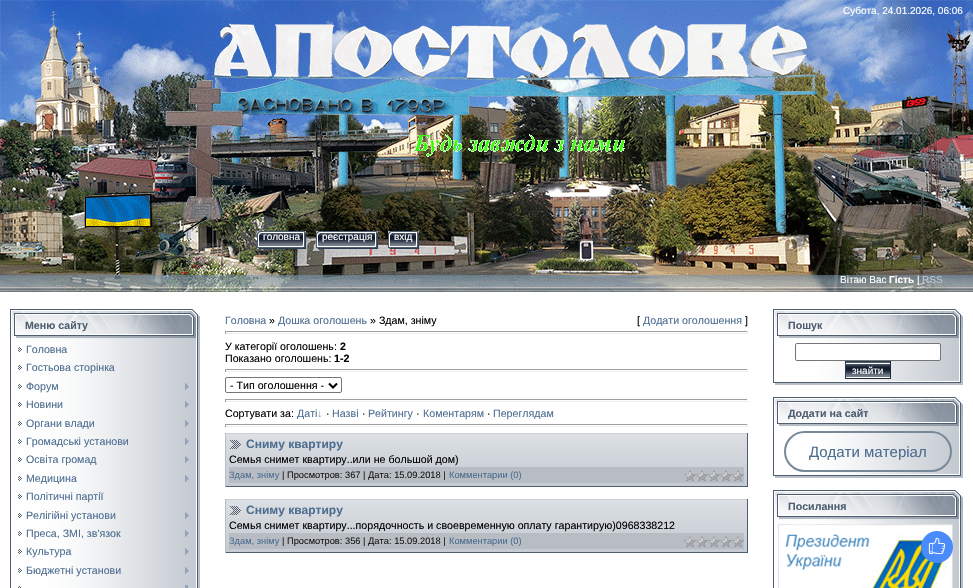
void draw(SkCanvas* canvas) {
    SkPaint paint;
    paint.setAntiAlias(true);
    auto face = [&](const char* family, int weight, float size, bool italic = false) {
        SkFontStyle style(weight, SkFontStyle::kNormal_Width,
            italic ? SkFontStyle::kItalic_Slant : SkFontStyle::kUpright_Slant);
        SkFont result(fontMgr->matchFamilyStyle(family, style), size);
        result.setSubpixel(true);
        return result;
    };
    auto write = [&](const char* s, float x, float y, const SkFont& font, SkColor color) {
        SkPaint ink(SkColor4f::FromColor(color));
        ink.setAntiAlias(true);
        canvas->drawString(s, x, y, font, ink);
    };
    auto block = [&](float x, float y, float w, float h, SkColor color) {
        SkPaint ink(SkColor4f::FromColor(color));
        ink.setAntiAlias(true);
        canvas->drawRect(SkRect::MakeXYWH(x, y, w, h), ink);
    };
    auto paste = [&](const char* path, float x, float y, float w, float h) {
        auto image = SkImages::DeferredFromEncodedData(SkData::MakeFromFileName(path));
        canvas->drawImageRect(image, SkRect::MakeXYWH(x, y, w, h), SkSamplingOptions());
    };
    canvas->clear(SK_ColorWHITE);
    paste("pic1.png", 0, 0, 973, 292);
    paste("pic2.png", 413, 134, 212, 23);
    auto kFont1 = face("Liberation Sans", 400, 10);
    write("Субота, 24.01.2026, 06:06", 843, 14, kFont1, SK_ColorWHITE);
    paste("pic3.png", 261, 231, 45, 18);
    paste("pic4.png", 257, 231, 4, 18);
    write("головна", 263, 240, kFont1, SK_ColorWHITE);
    paste("pic5.png", 302, 231, 4, 17);
    paste("pic6.png", 320, 231, 58, 18);
    paste("pic4.png", 316, 231, 4, 18);
    write("реєстрація", 322, 240, kFont1, SK_ColorWHITE);
    paste("pic5.png", 374, 231, 4, 17);
    paste("pic7.png", 392, 231, 27, 18);
    paste("pic4.png", 388, 231, 4, 18);
    write("вхід", 394, 240, kFont1, SK_ColorWHITE);
    paste("pic5.png", 415, 231, 4, 17);
    write("Вітаю Вас", 840, 283, kFont1, SK_ColorWHITE);
    auto kFont2 = face("Liberation Sans", 700, 10);
    write("Гість", 889, 283, kFont2, SK_ColorWHITE);
    write("|", 917, 283, kFont1, SK_ColorWHITE);
    write("RSS", 922, 283, kFont1, SkColorSetRGB(189, 200, 216));
    paste("pic8.png", 10, 309, 190, 31);
    auto kFont3 = face("Liberation Sans", 700, 10.65f);
    write("Меню сайту", 25, 329, kFont3, SkColorSetRGB(79, 93, 113));
    paste("pic9.png", 10, 340, 190, 248);
    paste("pic10.png", 18, 347, 4, 5);
    auto kFont4 = face("Liberation Sans", 400, 10.65f);
    write("Головна", 26, 353, kFont4, SkColorSetRGB(77, 109, 145));
    paste("pic10.png", 18, 365, 4, 5);
    write("Гостьова сторінка", 26, 371, kFont4, SkColorSetRGB(77, 109, 145));
    paste("pic10.png", 18, 384, 4, 5);
    write("Форум", 26, 390, kFont4, SkColorSetRGB(77, 109, 145));
    paste("pic11.png", 185, 383, 4, 7);
    paste("pic10.png", 18, 402, 4, 5);
    write("Новини", 26, 408, kFont4, SkColorSetRGB(77, 109, 145));
    paste("pic11.png", 185, 401, 4, 7);
    paste("pic10.png", 18, 421, 4, 5);
    write("Органи влади", 26, 427, kFont4, SkColorSetRGB(77, 109, 145));
    paste("pic11.png", 185, 420, 4, 7);
    paste("pic10.png", 18, 439, 4, 5);
    write("Громадські установи", 26, 445, kFont4, SkColorSetRGB(77, 109, 145));
    paste("pic11.png", 185, 438, 4, 7);
    paste("pic10.png", 18, 457, 4, 5);
    write("Освіта громад", 26, 463, kFont4, SkColorSetRGB(77, 109, 145));
    paste("pic11.png", 185, 456, 4, 7);
    paste("pic10.png", 18, 476, 4, 5);
    write("Медицина", 26, 482, kFont4, SkColorSetRGB(77, 109, 145));
    paste("pic11.png", 185, 475, 4, 7);
    paste("pic10.png", 18, 494, 4, 5);
    write("Політичні партії", 26, 500, kFont4, SkColorSetRGB(77, 109, 145));
    paste("pic10.png", 18, 513, 4, 5);
    write("Релігійні установи", 26, 519, kFont4, SkColorSetRGB(77, 109, 145));
    paste("pic11.png", 185, 512, 4, 7);
    paste("pic10.png", 18, 531, 4, 5);
    write("Преса, ЗМІ, зв'язок", 26, 537, kFont4, SkColorSetRGB(77, 109, 145));
    paste("pic11.png", 185, 530, 4, 7);
    paste("pic10.png", 18, 549, 4, 5);
    write("Культура", 26, 555, kFont4, SkColorSetRGB(77, 109, 145));
    paste("pic11.png", 185, 548, 4, 7);
    paste("pic10.png", 18, 568, 4, 5);
    write("Бюджетні установи", 26, 574, kFont4, SkColorSetRGB(77, 109, 145));
    paste("pic11.png", 185, 567, 4, 7);
    paste("pic12.png", 18, 586, 3, 2);
    block(185, 585, 3, 3, SkColorSetRGB(146, 165, 186));
    write("Головна", 225, 324, kFont4, SkColorSetRGB(77, 109, 145));
    write("»", 269, 324, kFont4, SK_ColorBLACK);
    write("Дошка оголошень", 278, 324, kFont4, SkColorSetRGB(77, 109, 145));
    write("» Здам, зніму", 370, 324, kFont4, SK_ColorBLACK);
    write("[", 637, 324, kFont4, SK_ColorBLACK);
    write("Додати оголошення", 643, 324, kFont4, SkColorSetRGB(77, 109, 145));
    write("]", 745, 324, kFont4, SK_ColorBLACK);
    block(225, 331, 523, 1, SkColorSetRGB(159, 159, 159));
    block(747, 331, 1, 3, SkColorSetRGB(238, 238, 238));
    block(225, 333, 523, 1, SkColorSetRGB(238, 238, 238));
    block(225, 331, 1, 3, SkColorSetRGB(159, 159, 159));
    write("У категорії оголошень:", 225, 350, kFont4, SK_ColorBLACK);
    write("2", 340, 350, kFont3, SK_ColorBLACK);
    write("Показано оголошень:", 225, 362, kFont4, SK_ColorBLACK);
    write("1-2", 334, 362, kFont3, SK_ColorBLACK);
    block(225, 369, 523, 1, SkColorSetRGB(159, 159, 159));
    block(747, 369, 1, 3, SkColorSetRGB(238, 238, 238));
    block(225, 371, 523, 1, SkColorSetRGB(238, 238, 238));
    block(225, 369, 1, 3, SkColorSetRGB(159, 159, 159));
    paint.setStyle(SkPaint::kStroke_Style);
    paint.setStrokeWidth(1);
    paint.setColor(SkColorSetRGB(118, 118, 118));
    canvas->drawRoundRect(SkRect::MakeXYWH(225.5f, 377.5f, 116, 15), 1.5f, 1.5f, paint);
    paint.setStrokeWidth(2);
    paint.setColor(SK_ColorBLACK);
    canvas->drawPath(SkPathBuilder().moveTo(329, 383.5f).lineTo(333, 387.5f).lineTo(337, 383.5f).detach(), paint);
    write("- Тип оголошення -", 230, 389, kFont4, SK_ColorBLACK);
    block(225, 399, 523, 1, SkColorSetRGB(159, 159, 159));
    block(747, 399, 1, 3, SkColorSetRGB(238, 238, 238));
    block(225, 401, 523, 1, SkColorSetRGB(238, 238, 238));
    block(225, 399, 1, 3, SkColorSetRGB(159, 159, 159));
    write("Сортувати за:", 225, 417, kFont4, SK_ColorBLACK);
    write("Даті", 297, 417, kFont4, SkColorSetRGB(77, 109, 145));
    write("↓", 317, 417, kFont4, SkColorSetRGB(160, 160, 160));
    write("·", 326, 417, kFont4, SK_ColorBLACK);
    write("Назві", 332, 417, kFont4, SkColorSetRGB(77, 109, 145));
    write("·", 362, 417, kFont4, SK_ColorBLACK);
    write("Рейтингу", 368, 417, kFont4, SkColorSetRGB(77, 109, 145));
    write("·", 416, 417, kFont4, SK_ColorBLACK);
    write("Коментарям", 423, 417, kFont4, SkColorSetRGB(77, 109, 145));
    write("·", 487, 417, kFont4, SK_ColorBLACK);
    write("Переглядам", 493, 417, kFont4, SkColorSetRGB(77, 109, 145));
    block(225, 424, 523, 1, SkColorSetRGB(159, 159, 159));
    block(747, 424, 1, 3, SkColorSetRGB(238, 238, 238));
    block(225, 426, 523, 1, SkColorSetRGB(238, 238, 238));
    block(225, 424, 1, 3, SkColorSetRGB(159, 159, 159));
    paste("pic13.png", 226, 434, 521, 52);
    block(225, 433, 523, 1, SkColorSetRGB(201, 207, 216));
    block(747, 433, 1, 54, SkColorSetRGB(79, 93, 113));
    block(225, 486, 523, 1, SkColorSetRGB(79, 93, 113));
    block(225, 433, 1, 54, SkColorSetRGB(185, 191, 199));
    paste("pic14.png", 230, 440, 11, 9);
    auto kFont5 = face("Liberation Sans", 700, 12);
    write("Сниму квартиру", 246, 448, kFont5, SkColorSetRGB(77, 109, 145));
    write("Семья снимет квартиру..или не большой дом)", 229, 463, kFont4, SK_ColorBLACK);
    block(229, 467, 515, 16, SkColorSetRGB(184, 189, 196));
    auto kFont6 = face("Liberation Sans", 400, 9.3f);
    write("Здам, зніму", 229, 478, kFont6, SkColorSetRGB(77, 109, 145));
    write("| Просмотров: 367 | Дата: 15.09.2018 |", 282, 478, kFont6, SkColorSetRGB(26, 26, 26));
    write("Комментарии (0)", 449, 478, kFont6, SkColorSetRGB(77, 109, 145));
    paste("pic15.png", 684, 470, 60, 12);
    paste("pic13.png", 226, 500, 521, 52);
    block(225, 499, 523, 1, SkColorSetRGB(201, 207, 216));
    block(747, 499, 1, 54, SkColorSetRGB(79, 93, 113));
    block(225, 552, 523, 1, SkColorSetRGB(79, 93, 113));
    block(225, 499, 1, 54, SkColorSetRGB(185, 191, 199));
    paste("pic14.png", 230, 506, 11, 9);
    write("Сниму квартиру", 246, 514, kFont5, SkColorSetRGB(77, 109, 145));
    write("Семья снимет квартиру...порядочность и своевременную оплату гарантирую)0968338212", 229, 529, kFont4, SK_ColorBLACK);
    block(229, 533, 515, 16, SkColorSetRGB(184, 189, 196));
    write("Здам, зніму", 229, 544, kFont6, SkColorSetRGB(77, 109, 145));
    write("| Просмотров: 356 | Дата: 15.09.2018 |", 282, 544, kFont6, SkColorSetRGB(26, 26, 26));
    write("Комментарии (0)", 449, 544, kFont6, SkColorSetRGB(77, 109, 145));
    paste("pic15.png", 684, 536, 60, 12);
    paste("pic8.png", 773, 309, 190, 31);
    write("Пошук", 788, 329, kFont3, SkColorSetRGB(79, 93, 113));
    paste("pic16.png", 773, 340, 190, 39);
    paint.setStyle(SkPaint::kFill_Style);
    paint.setColor(SK_ColorWHITE);
    canvas->drawRoundRect(SkRect::MakeXYWH(795.5f, 343.5f, 145, 17), 1.5f, 1.5f, paint);
    paint.setStyle(SkPaint::kStroke_Style);
    paint.setStrokeWidth(1);
    paint.setColor(SkColorSetRGB(118, 118, 118));
    canvas->drawRoundRect(SkRect::MakeXYWH(795.5f, 343.5f, 145, 17), 1.5f, 1.5f, paint);
    paste("pic17.png", 846, 361, 44, 17);
    block(890, 361, 1, 18, SkColorSetRGB(29, 41, 55));
    block(845, 378, 46, 1, SkColorSetRGB(29, 41, 55));
    block(845, 361, 1, 18, SkColorSetRGB(44, 61, 82));
    write("знайти", 852, 374, kFont1, SK_ColorWHITE);
    paste("pic18.png", 773, 379, 190, 6);
    paste("pic8.png", 773, 397, 190, 31);
    write("Додати на сайт", 788, 417, kFont3, SkColorSetRGB(79, 93, 113));
    paste("pic19.png", 773, 428, 190, 44);
    paint.setStrokeWidth(2);
    paint.setColor(SkColorSetRGB(119, 136, 153));
    canvas->drawRoundRect(SkRect::MakeXYWH(785, 432, 166, 39), 19.5f, 19.5f, paint);
    auto kFont7 = face("Liberation Sans", 400, 15);
    write("Додати матеріал", 809, 457, kFont7, SkColorSetRGB(77, 109, 145));
    paste("pic18.png", 773, 472, 190, 6);
    paste("pic8.png", 773, 490, 190, 31);
    write("Посилання", 788, 510, kFont3, SkColorSetRGB(79, 93, 113));
    paste("pic20.png", 773, 521, 190, 67);
    paste("pic21.png", 778, 524, 175, 64);
    paint.setStyle(SkPaint::kFill_Style);
    paint.setColor(SkColorSetRGB(73, 139, 250));
    canvas->drawCircle(937, 547, 16, paint);
    paste("pic22.png", 928, 537, 18, 17);
}
